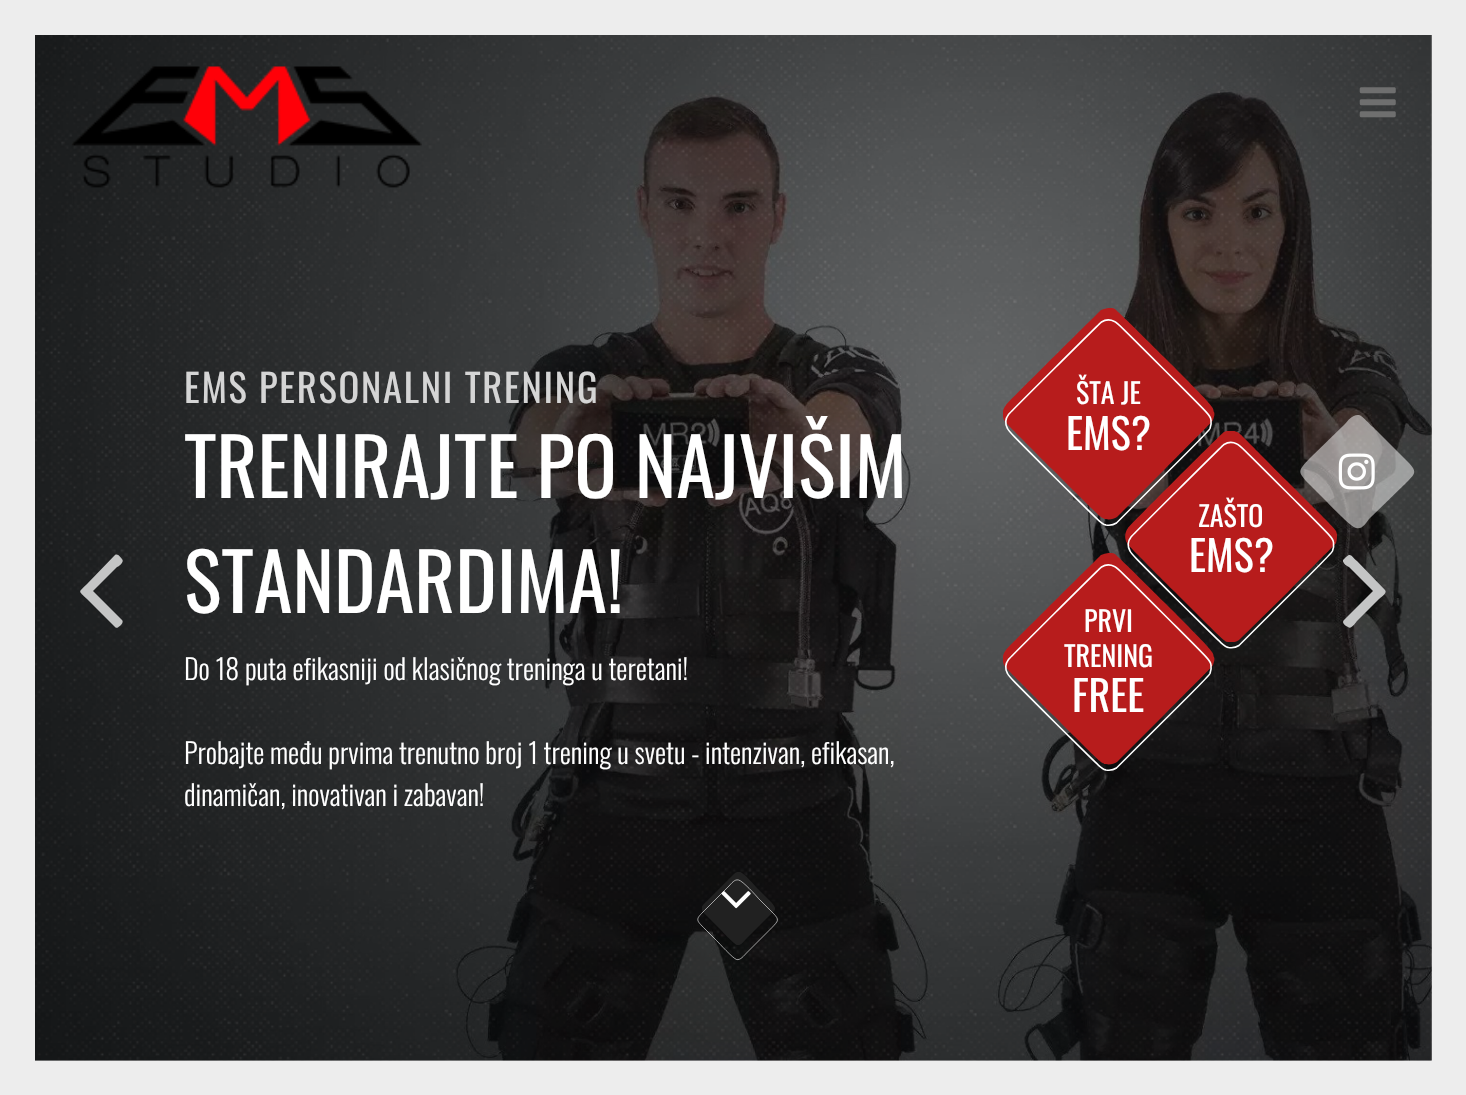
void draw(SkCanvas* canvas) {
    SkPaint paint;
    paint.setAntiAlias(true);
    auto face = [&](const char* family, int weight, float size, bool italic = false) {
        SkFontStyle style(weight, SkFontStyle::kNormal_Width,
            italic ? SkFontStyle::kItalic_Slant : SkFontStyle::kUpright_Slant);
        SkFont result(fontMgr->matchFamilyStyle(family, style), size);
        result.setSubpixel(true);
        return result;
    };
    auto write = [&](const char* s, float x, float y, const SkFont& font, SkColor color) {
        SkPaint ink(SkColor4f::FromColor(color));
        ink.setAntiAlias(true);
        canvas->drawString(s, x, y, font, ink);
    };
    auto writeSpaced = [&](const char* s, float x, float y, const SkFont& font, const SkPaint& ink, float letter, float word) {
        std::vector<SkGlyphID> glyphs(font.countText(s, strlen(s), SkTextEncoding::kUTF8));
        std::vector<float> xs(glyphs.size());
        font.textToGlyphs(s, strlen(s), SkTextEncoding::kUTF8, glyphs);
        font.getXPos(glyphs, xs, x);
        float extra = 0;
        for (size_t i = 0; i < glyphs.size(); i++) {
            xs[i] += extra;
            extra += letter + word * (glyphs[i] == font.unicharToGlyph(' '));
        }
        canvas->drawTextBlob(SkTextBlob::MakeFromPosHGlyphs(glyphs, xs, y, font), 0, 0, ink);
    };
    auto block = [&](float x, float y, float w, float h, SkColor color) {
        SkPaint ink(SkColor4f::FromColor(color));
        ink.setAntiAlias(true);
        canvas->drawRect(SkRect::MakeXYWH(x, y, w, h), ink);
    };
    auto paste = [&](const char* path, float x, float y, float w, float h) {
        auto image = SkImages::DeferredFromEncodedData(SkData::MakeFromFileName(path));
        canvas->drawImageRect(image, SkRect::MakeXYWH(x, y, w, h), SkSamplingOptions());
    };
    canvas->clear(SK_ColorWHITE);
    paste("pic1.png", 35, 35, 1397, 1026);
    block(0, 0, 1466, 35, SkColorSetRGB(237, 237, 237));
    block(0, 35, 35, 1026, SkColorSetRGB(237, 237, 237));
    paste("pic4.png", 35, 35, 1397, 1026);
    paste("pic5.png", 35, 35, 1397, 1026);
    paste("pic2.png", 72, 66, 350, 122);
    paste("pic3.png", 1359, 87, 37, 31);
    block(1432, 35, 34, 1026, SkColorSetRGB(237, 237, 237));
    auto kFont1 = face("Oswald", 400, 38.5f);
    paint.setColor(SkColorSetRGB(213, 213, 213));
    writeSpaced("EMS PERSONALNI TRENING", 184, 403, kFont1, paint, 1.75f, 0);
    auto kFont2 = face("Oswald", 400, 78.75f);
    write("TRENIRAJTE PO NAJVIŠIM", 184, 498, kFont2, SK_ColorWHITE);
    write("STANDARDIMA!", 184, 613, kFont2, SK_ColorWHITE);
    auto kFont3 = face("Oswald", 300, 28);
    write("Do 18 puta efikasniji od klasičnog treninga u teretani!", 184, 680, kFont3, SK_ColorWHITE);
    write("Probajte među prvima trenutno broj 1 trening u svetu - intenzivan, efikasan,", 184, 764, kFont3, SK_ColorWHITE);
    write("dinamičan, inovativan i zabavan!", 184, 806, kFont3, SK_ColorWHITE);
    canvas->save();
    canvas->clipRect(SkRect::MakeXYWH(1003, 308, 212, 212));
    paint.setColor(SkColorSetRGB(183, 28, 28));
    canvas->drawPath(SkPathBuilder().moveTo(1106, 519).cubicTo(1101, 518, 1104, 521, 1053, 470).cubicTo(1008, 425, 1005, 422, 1004, 420).cubicTo(1002, 415, 1002, 410, 1006, 405).cubicTo(1008, 402, 1100, 311, 1101, 310).cubicTo(1106, 308, 1111, 307, 1115, 309).cubicTo(1117, 311, 1120, 313, 1165, 358).cubicTo(1217, 410, 1213, 407, 1214, 412).cubicTo(1215, 414, 1214, 417, 1213, 420).cubicTo(1212, 422, 1209, 425, 1165, 469).lineTo(1117, 517).cubicTo(1114, 519, 1109, 520, 1106, 519).close().detach(), paint);
    canvas->restore();
    canvas->save();
    canvas->clipRect(SkRect::MakeXYWH(1125, 431, 212, 211));
    canvas->drawPath(SkPathBuilder().moveTo(1228, 642).cubicTo(1224, 641, 1226, 643, 1175, 592).cubicTo(1130, 547, 1128, 545, 1127, 543).cubicTo(1124, 538, 1125, 532, 1128, 528).cubicTo(1130, 525, 1222, 433, 1224, 432).cubicTo(1228, 430, 1233, 430, 1237, 432).cubicTo(1240, 433, 1242, 436, 1287, 481).cubicTo(1339, 533, 1336, 529, 1337, 534).cubicTo(1337, 537, 1337, 540, 1336, 543).cubicTo(1335, 545, 1332, 547, 1288, 592).lineTo(1239, 640).cubicTo(1236, 642, 1232, 643, 1228, 642).close().detach(), paint);
    canvas->restore();
    paint.setStyle(SkPaint::kStroke_Style);
    paint.setStrokeWidth(1.6f);
    paint.setColor(SK_ColorWHITE);
    canvas->drawPath(SkPathBuilder().moveTo(1106, 525).cubicTo(1101.5f, 524, 1104, 526, 1054.5f, 477).cubicTo(1011, 433.5f, 1008.5f, 431, 1007.5f, 428.5f).cubicTo(1005, 424, 1005.5f, 418.5f, 1008.5f, 414.5f).cubicTo(1011, 411.5f, 1100, 323, 1101.5f, 322).cubicTo(1105.5f, 319.5f, 1110.5f, 319.5f, 1114.5f, 321.5f).cubicTo(1117, 322.5f, 1119.5f, 325, 1163, 368.5f).cubicTo(1213.5f, 419, 1210.5f, 415.5f, 1211, 420.5f).cubicTo(1211.5f, 423, 1211, 425.5f, 1210, 428.5f).cubicTo(1209, 430.5f, 1206.5f, 433.5f, 1163.5f, 476).lineTo(1116.5f, 523).cubicTo(1113.5f, 525, 1109, 525.5f, 1106, 525).close().detach(), paint);
    auto kFont4 = face("Oswald", 400, 28);
    write("ŠTA JE", 1076, 404, kFont4, SK_ColorWHITE);
    auto kFont5 = face("Oswald", 400, 42);
    write("EMS?", 1066, 450, kFont5, SK_ColorWHITE);
    canvas->save();
    canvas->clipRect(SkRect::MakeXYWH(1003, 553, 212, 212));
    paint.setStyle(SkPaint::kFill_Style);
    paint.setColor(SkColorSetRGB(183, 28, 28));
    canvas->drawPath(SkPathBuilder().moveTo(1106, 764).cubicTo(1101, 763, 1104, 766, 1053, 715).cubicTo(1008, 670, 1005, 667, 1004, 665).cubicTo(1002, 660, 1002, 655, 1006, 650).cubicTo(1008, 647, 1100, 556, 1101, 555).cubicTo(1106, 553, 1111, 552, 1115, 554).cubicTo(1117, 556, 1120, 558, 1165, 603).cubicTo(1217, 655, 1213, 652, 1214, 657).cubicTo(1215, 659, 1214, 662, 1213, 665).cubicTo(1212, 667, 1209, 670, 1165, 714).lineTo(1117, 762).cubicTo(1114, 764, 1109, 765, 1106, 764).close().detach(), paint);
    canvas->restore();
    paste("pic6.png", 1338, 453, 37, 37);
    paint.setColor(SkColorSetARGB(128, 255, 255, 255));
    canvas->drawPath(SkPathBuilder().moveTo(1356, 528).cubicTo(1351, 527, 1330, 505, 1327, 502).lineTo(1308, 483).cubicTo(1297, 471, 1298, 471, 1310, 458).lineTo(1345, 424).cubicTo(1348, 420, 1353, 414, 1359, 415).cubicTo(1363, 416, 1370, 425, 1373, 427).lineTo(1408, 462).cubicTo(1418, 472, 1415, 474, 1406, 483).lineTo(1369, 519).cubicTo(1366, 523, 1362, 530, 1356, 528).close().detach(), paint);
    paint.setStyle(SkPaint::kStroke_Style);
    paint.setColor(SK_ColorWHITE);
    canvas->drawPath(SkPathBuilder().moveTo(1228.5f, 647.5f).cubicTo(1224, 646.5f, 1226.5f, 648.5f, 1177, 599.5f).cubicTo(1133.5f, 556, 1131, 553.5f, 1130, 551).cubicTo(1127.5f, 546.5f, 1128, 541, 1131, 537).cubicTo(1133.5f, 534, 1222.5f, 445.5f, 1224, 444.5f).cubicTo(1228, 442, 1233, 442, 1237, 444).cubicTo(1239.5f, 445, 1242, 447.5f, 1285.5f, 491).cubicTo(1336, 541.5f, 1333, 538, 1333.5f, 543).cubicTo(1334, 545.5f, 1333.5f, 548, 1332.5f, 551).cubicTo(1331.5f, 553, 1329, 556, 1286, 598.5f).lineTo(1239, 645.5f).cubicTo(1236, 647.5f, 1231.5f, 648, 1228.5f, 647.5f).close().detach(), paint);
    write("ZAŠTO", 1198, 527, kFont4, SK_ColorWHITE);
    write("EMS?", 1189, 572, kFont5, SK_ColorWHITE);
    canvas->drawPath(SkPathBuilder().moveTo(1106, 770).cubicTo(1101.5f, 769, 1104, 771, 1054.5f, 722).cubicTo(1011, 678.5f, 1008.5f, 676, 1007.5f, 673.5f).cubicTo(1005, 669, 1005.5f, 663.5f, 1008.5f, 659.5f).cubicTo(1011, 656.5f, 1100, 568, 1101.5f, 567).cubicTo(1105.5f, 564.5f, 1110.5f, 564.5f, 1114.5f, 566.5f).cubicTo(1117, 567.5f, 1119.5f, 570, 1163, 613.5f).cubicTo(1213.5f, 664, 1210.5f, 660.5f, 1211, 665.5f).cubicTo(1211.5f, 668, 1211, 670.5f, 1210, 673.5f).cubicTo(1209, 675.5f, 1206.5f, 678.5f, 1163.5f, 721).lineTo(1116.5f, 768).cubicTo(1113.5f, 770, 1109, 770.5f, 1106, 770).close().detach(), paint);
    write("PRVI", 1084, 632, kFont4, SK_ColorWHITE);
    write("TRENING", 1064, 667, kFont4, SK_ColorWHITE);
    write("FREE", 1072, 712, kFont5, SK_ColorWHITE);
    paint.setStyle(SkPaint::kFill_Style);
    paint.setColor(SkColorSetRGB(196, 197, 197));
    canvas->drawPath(SkPathBuilder().moveTo(122, 559).cubicTo(125, 562, 118, 567, 117, 567).lineTo(93, 591).lineTo(122, 620).cubicTo(124, 622, 121, 625, 120, 626).cubicTo(118, 627, 117, 629, 115, 627).lineTo(87, 599).cubicTo(78, 590, 78, 593, 87, 584).lineTo(115, 555).cubicTo(118, 553, 121, 558, 122, 559).close().detach(), paint);
    canvas->drawPath(SkPathBuilder().moveTo(1385, 590).cubicTo(1388, 593, 1380, 598, 1379, 599).lineTo(1357, 621).cubicTo(1356, 622, 1351, 630, 1348, 627).cubicTo(1346, 626, 1341, 623, 1344, 620).lineTo(1373, 591).lineTo(1349, 567).cubicTo(1348, 567, 1342, 563, 1343, 560).lineTo(1346, 557).cubicTo(1351, 552, 1352, 557, 1357, 561).close().detach(), paint);
    canvas->save();
    canvas->clipRect(SkRect::MakeXYWH(702, 872, 73, 73));
    paint.setColor(SkColorSetRGB(33, 33, 33));
    canvas->drawPath(SkPathBuilder().moveTo(737, 945).cubicTo(734, 944, 721, 930, 719, 928).lineTo(707, 916).cubicTo(699, 908, 700, 908, 708, 900).lineTo(731, 877).cubicTo(733, 875, 736, 871, 740, 872).cubicTo(743, 872, 756, 887, 758, 889).lineTo(771, 902).cubicTo(777, 909, 776, 910, 770, 915).lineTo(746, 939).cubicTo(744, 941, 741, 946, 737, 945).close().detach(), paint);
    canvas->restore();
    paste("pic7.png", 721, 891, 30, 18);
    paint.setStyle(SkPaint::kStroke_Style);
    paint.setStrokeWidth(0.6f);
    paint.setColor(SK_ColorWHITE);
    canvas->drawPath(SkPathBuilder().moveTo(736.5f, 959.5f).cubicTo(733, 958.5f, 719, 943, 716.5f, 940.5f).lineTo(703.5f, 927.5f).cubicTo(695.5f, 919.5f, 696, 919, 704.5f, 910.5f).lineTo(729, 886).cubicTo(731.5f, 883.5f, 734.5f, 879, 738.5f, 880).cubicTo(742.5f, 880.5f, 756.5f, 896, 758.5f, 898.5f).lineTo(773, 913).cubicTo(780, 920, 778, 921, 772, 927.5f).lineTo(746.5f, 953).cubicTo(744, 955.5f, 740.5f, 960.5f, 736.5f, 959.5f).close().detach(), paint);
    block(0, 1061, 1466, 34, SkColorSetRGB(237, 237, 237));
}
